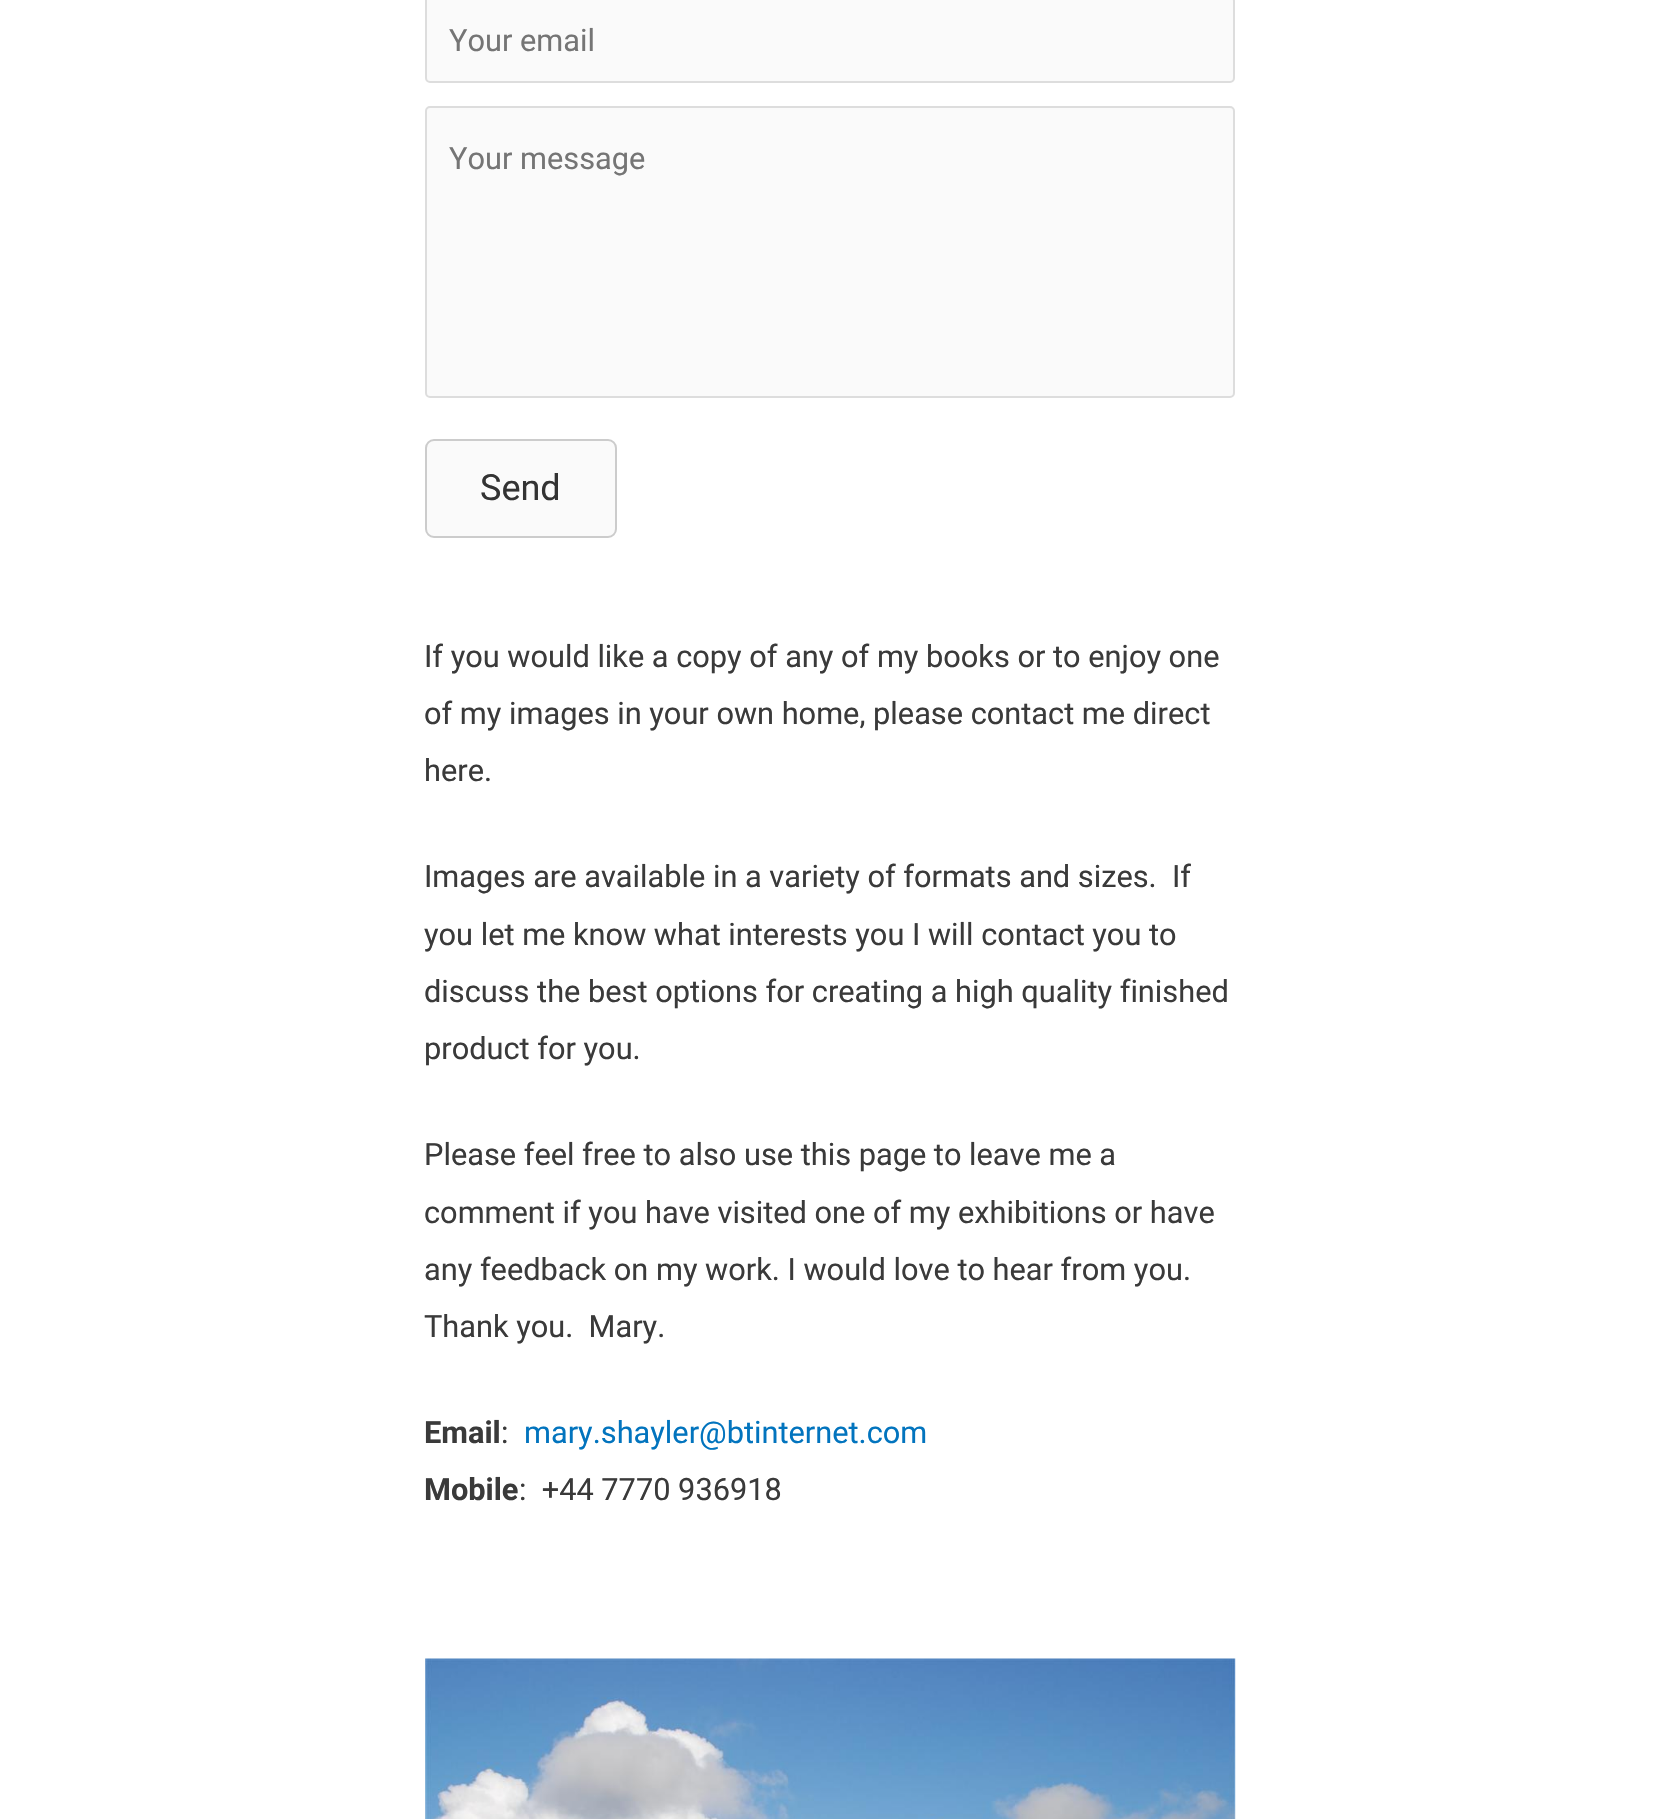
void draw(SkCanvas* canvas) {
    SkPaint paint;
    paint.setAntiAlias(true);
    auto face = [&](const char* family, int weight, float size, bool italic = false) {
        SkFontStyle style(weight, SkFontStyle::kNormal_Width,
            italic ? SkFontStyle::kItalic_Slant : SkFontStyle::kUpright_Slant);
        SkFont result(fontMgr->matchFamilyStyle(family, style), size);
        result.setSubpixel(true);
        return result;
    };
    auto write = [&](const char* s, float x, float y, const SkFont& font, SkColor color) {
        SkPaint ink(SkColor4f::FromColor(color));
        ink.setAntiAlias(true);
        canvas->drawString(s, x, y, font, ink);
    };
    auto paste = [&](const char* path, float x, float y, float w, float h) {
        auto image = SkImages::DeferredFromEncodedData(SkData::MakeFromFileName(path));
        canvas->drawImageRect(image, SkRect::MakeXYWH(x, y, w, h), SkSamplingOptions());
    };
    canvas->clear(SK_ColorWHITE);
    paint.setColor(SkColorSetRGB(250, 250, 250));
    canvas->drawRoundRect(SkRect::MakeXYWH(426, -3, 808, 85), 4, 4, paint);
    paint.setStyle(SkPaint::kStroke_Style);
    paint.setStrokeWidth(2);
    paint.setColor(SkColorSetRGB(221, 221, 221));
    canvas->drawRoundRect(SkRect::MakeXYWH(426, -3, 808, 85), 4, 4, paint);
    auto kFont1 = face("Roboto", 400, 30.75f);
    write("Your email", 449, 51, kFont1, SkColorSetRGB(117, 117, 117));
    paint.setStyle(SkPaint::kFill_Style);
    paint.setColor(SkColorSetRGB(250, 250, 250));
    canvas->drawRoundRect(SkRect::MakeXYWH(426, 107, 808, 290), 4, 4, paint);
    paint.setStyle(SkPaint::kStroke_Style);
    paint.setColor(SkColorSetRGB(221, 221, 221));
    canvas->drawRoundRect(SkRect::MakeXYWH(426, 107, 808, 290), 4, 4, paint);
    write("Your message", 449, 169, kFont1, SkColorSetRGB(117, 117, 117));
    paint.setStyle(SkPaint::kFill_Style);
    paint.setColor(SkColorSetRGB(250, 250, 250));
    canvas->drawRoundRect(SkRect::MakeXYWH(426, 440, 190, 97), 8, 8, paint);
    paint.setStyle(SkPaint::kStroke_Style);
    paint.setColor(SkColorSetRGB(204, 204, 204));
    canvas->drawRoundRect(SkRect::MakeXYWH(426, 440, 190, 97), 8, 8, paint);
    auto kFont2 = face("Roboto", 400, 36);
    write("Send", 480, 500, kFont2, SkColorSetRGB(51, 51, 51));
    write("If you would like a copy of any of my books or to enjoy one", 424, 667, kFont1, SkColorSetRGB(58, 58, 58));
    write("of my images in your own home, please contact me direct", 424, 724, kFont1, SkColorSetRGB(58, 58, 58));
    write("here.", 424, 781, kFont1, SkColorSetRGB(58, 58, 58));
    write("Images are available in a variety of formats and sizes.  If", 424, 887, kFont1, SkColorSetRGB(58, 58, 58));
    write("you let me know what interests you I will contact you to", 424, 945, kFont1, SkColorSetRGB(58, 58, 58));
    write("discuss the best options for creating a high quality finished", 424, 1002, kFont1, SkColorSetRGB(58, 58, 58));
    write("product for you.", 424, 1059, kFont1, SkColorSetRGB(58, 58, 58));
    write("Please feel free to also use this page to leave me a", 424, 1165, kFont1, SkColorSetRGB(58, 58, 58));
    write("comment if you have visited one of my exhibitions or have", 424, 1223, kFont1, SkColorSetRGB(58, 58, 58));
    write("any feedback on my work. I would love to hear from you.", 424, 1280, kFont1, SkColorSetRGB(58, 58, 58));
    write("Thank you.  Mary.", 424, 1337, kFont1, SkColorSetRGB(58, 58, 58));
    auto kFont3 = face("Roboto", 700, 30.75f);
    write("Email", 424, 1443, kFont3, SkColorSetRGB(58, 58, 58));
    write(":", 501, 1443, kFont1, SkColorSetRGB(58, 58, 58));
    write("mary.shayler@btinternet.com", 524, 1443, kFont1, SkColorSetRGB(2, 116, 190));
    write("Mobile", 424, 1500, kFont3, SkColorSetRGB(58, 58, 58));
    write(":  +44 7770 936918", 519, 1500, kFont1, SkColorSetRGB(58, 58, 58));
    paste("pic1.png", 425, 1658, 811, 161);
}
